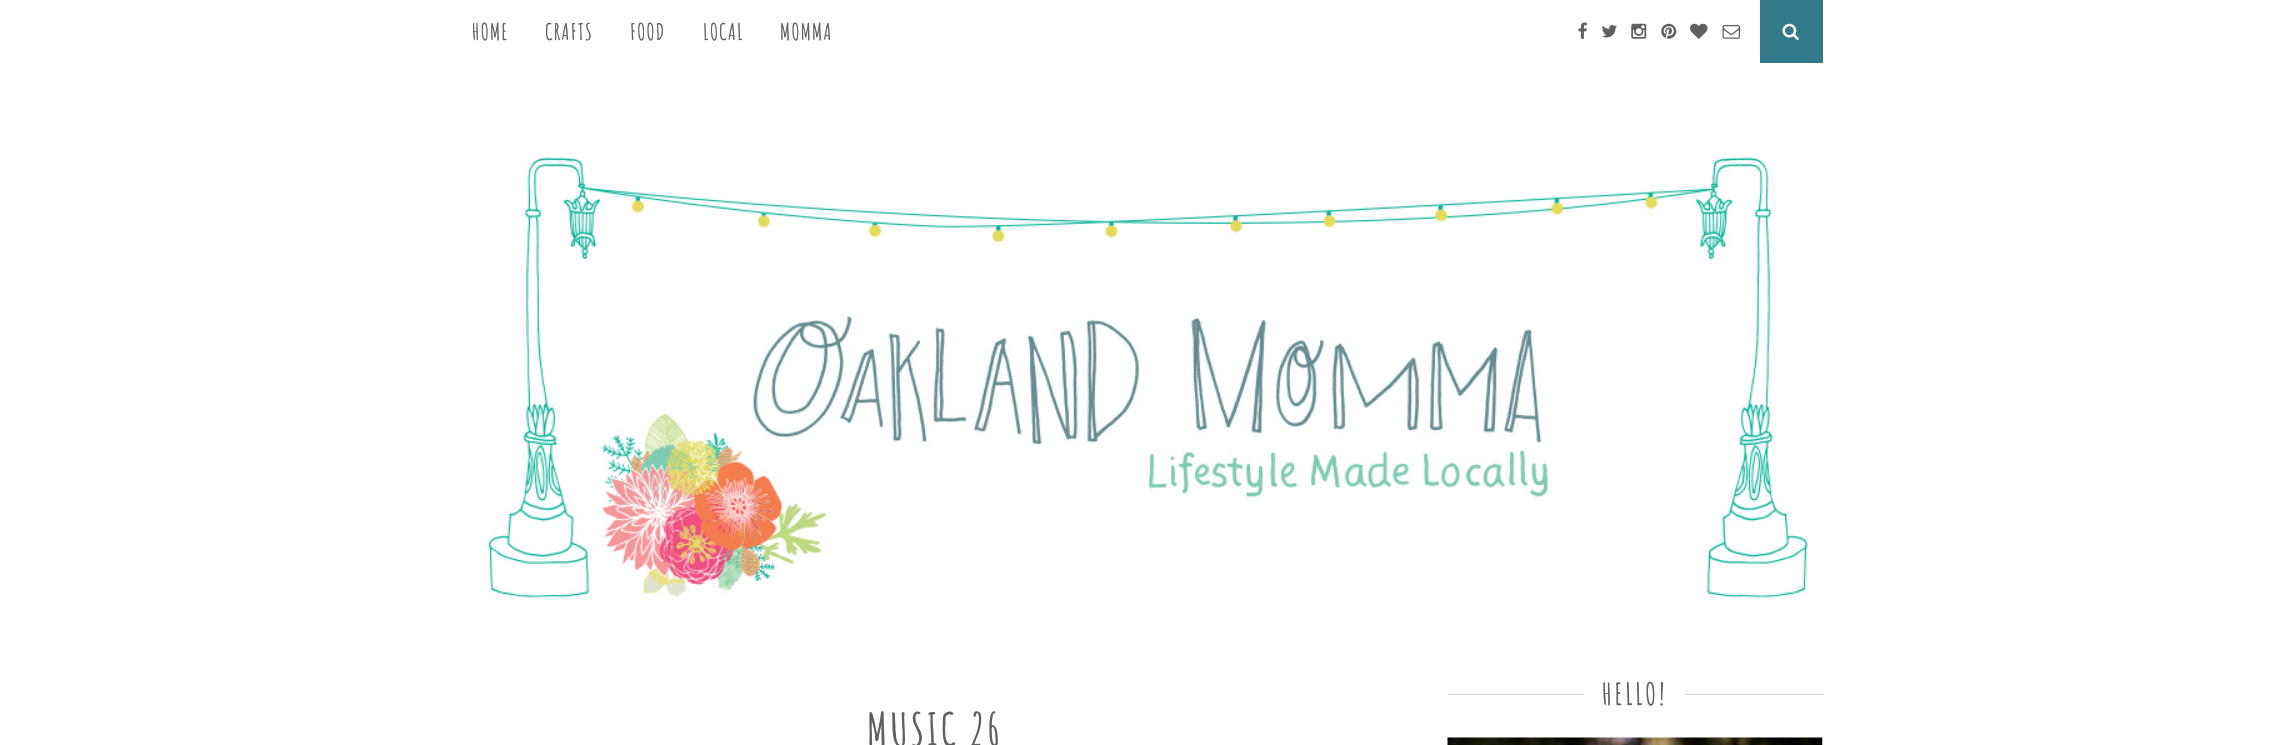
void draw(SkCanvas* canvas) {
    SkPaint paint;
    paint.setAntiAlias(true);
    auto face = [&](const char* family, int weight, float size, bool italic = false) {
        SkFontStyle style(weight, SkFontStyle::kNormal_Width,
            italic ? SkFontStyle::kItalic_Slant : SkFontStyle::kUpright_Slant);
        SkFont result(fontMgr->matchFamilyStyle(family, style), size);
        result.setSubpixel(true);
        return result;
    };
    auto writeSpaced = [&](const char* s, float x, float y, const SkFont& font, const SkPaint& ink, float letter, float word) {
        std::vector<SkGlyphID> glyphs(font.countText(s, strlen(s), SkTextEncoding::kUTF8));
        std::vector<float> xs(glyphs.size());
        font.textToGlyphs(s, strlen(s), SkTextEncoding::kUTF8, glyphs);
        font.getXPos(glyphs, xs, x);
        float extra = 0;
        for (size_t i = 0; i < glyphs.size(); i++) {
            xs[i] += extra;
            extra += letter + word * (glyphs[i] == font.unicharToGlyph(' '));
        }
        canvas->drawTextBlob(SkTextBlob::MakeFromPosHGlyphs(glyphs, xs, y, font), 0, 0, ink);
    };
    auto block = [&](float x, float y, float w, float h, SkColor color) {
        SkPaint ink(SkColor4f::FromColor(color));
        ink.setAntiAlias(true);
        canvas->drawRect(SkRect::MakeXYWH(x, y, w, h), ink);
    };
    auto paste = [&](const char* path, float x, float y, float w, float h) {
        auto image = SkImages::DeferredFromEncodedData(SkData::MakeFromFileName(path));
        canvas->drawImageRect(image, SkRect::MakeXYWH(x, y, w, h), SkSamplingOptions());
    };
    canvas->clear(SK_ColorWHITE);
    auto kFont1 = face("Amatic SC", 700, 22.5f);
    paint.setColor(SkColorSetRGB(96, 96, 96));
    writeSpaced("HOME", 472, 40, kFont1, paint, 1.25f, 0);
    writeSpaced("CRAFTS", 545, 40, kFont1, paint, 1.25f, 0);
    writeSpaced("FOOD", 630, 40, kFont1, paint, 1.25f, 0);
    writeSpaced("LOCAL", 703, 40, kFont1, paint, 1.25f, 0);
    writeSpaced("MOMMA", 780, 40, kFont1, paint, 1.25f, 0);
    paste("pic1.png", 1578, 22, 9, 17);
    paste("pic2.png", 1601, 25, 16, 13);
    paste("pic3.png", 1631, 23, 16, 16);
    paste("pic4.png", 1661, 23, 16, 16);
    paste("pic5.png", 1690, 23, 18, 16);
    paste("pic6.png", 1722, 25, 18, 14);
    block(1760, 0, 63, 63, SkColorSetRGB(50, 121, 137));
    paste("pic7.png", 1782, 23, 17, 17);
    paste("pic8.png", 488, 157, 1323, 441);
    block(1448, 694, 136, 1, SkColorSetRGB(216, 216, 216));
    auto kFont2 = face("Amatic SC", 700, 30);
    writeSpaced("HELLO!", 1602, 705, kFont2, paint, 2.5f, 0);
    block(1685, 694, 138, 1, SkColorSetRGB(216, 216, 216));
    paste("pic9.png", 1447, 737, 376, 8);
    auto kFont3 = face("Amatic SC", 700, 45);
    writeSpaced("MUSIC 26", 867, 746, kFont3, paint, 2.5f, 0);
}
